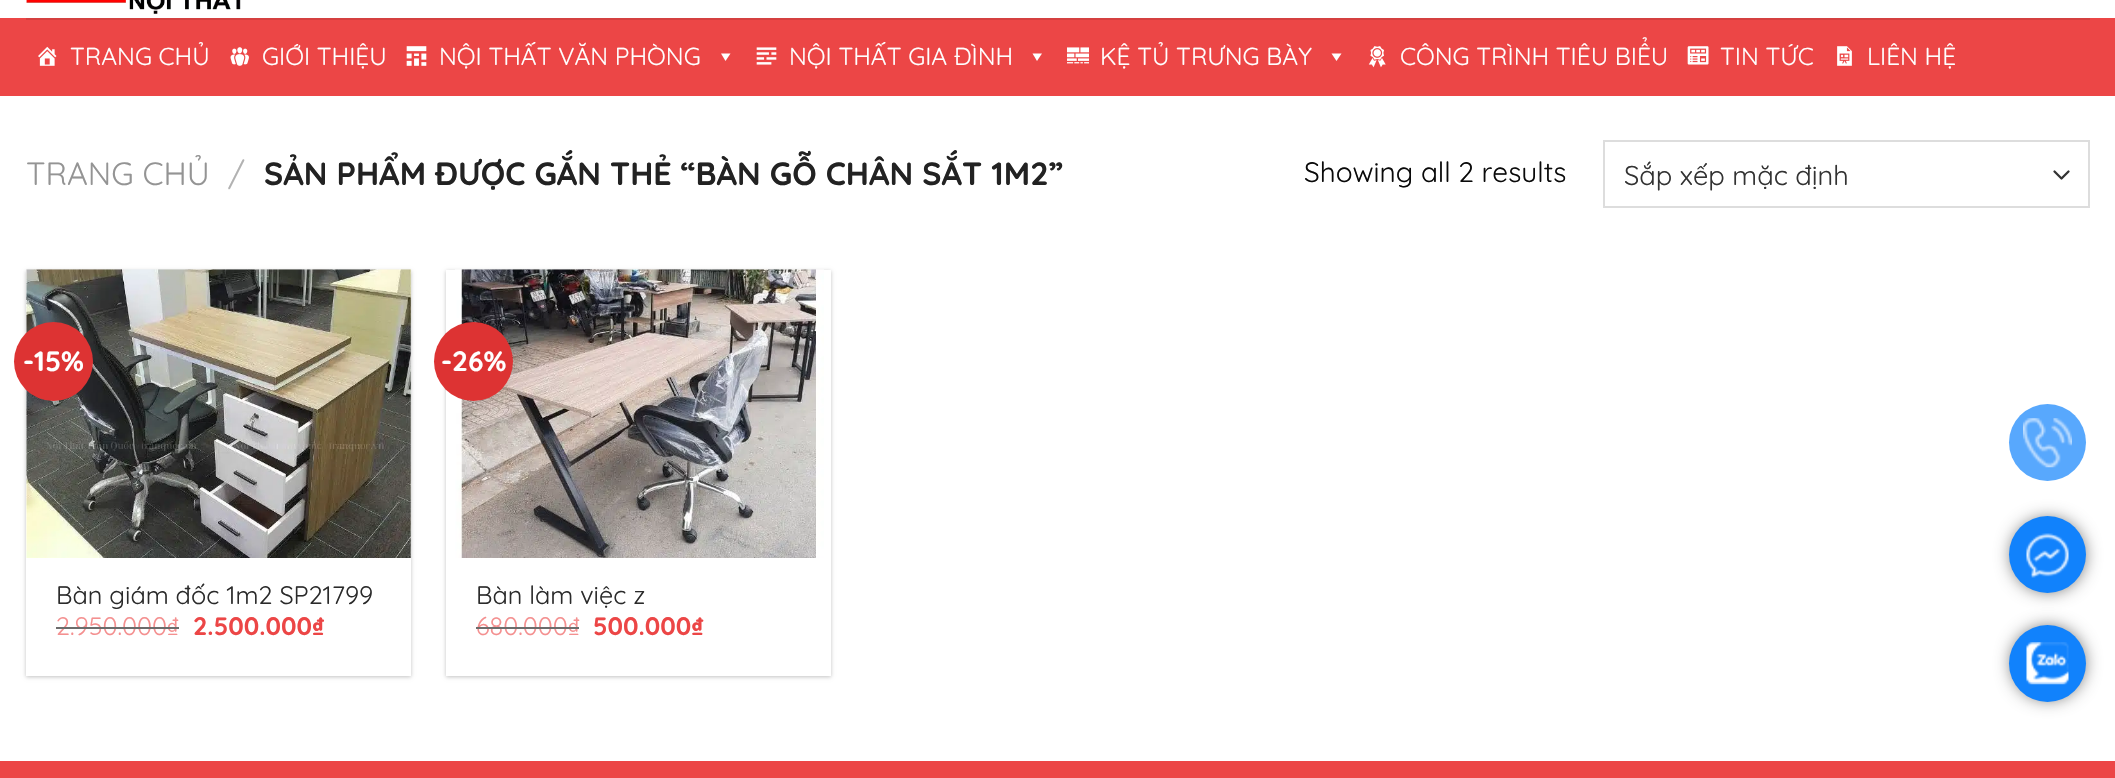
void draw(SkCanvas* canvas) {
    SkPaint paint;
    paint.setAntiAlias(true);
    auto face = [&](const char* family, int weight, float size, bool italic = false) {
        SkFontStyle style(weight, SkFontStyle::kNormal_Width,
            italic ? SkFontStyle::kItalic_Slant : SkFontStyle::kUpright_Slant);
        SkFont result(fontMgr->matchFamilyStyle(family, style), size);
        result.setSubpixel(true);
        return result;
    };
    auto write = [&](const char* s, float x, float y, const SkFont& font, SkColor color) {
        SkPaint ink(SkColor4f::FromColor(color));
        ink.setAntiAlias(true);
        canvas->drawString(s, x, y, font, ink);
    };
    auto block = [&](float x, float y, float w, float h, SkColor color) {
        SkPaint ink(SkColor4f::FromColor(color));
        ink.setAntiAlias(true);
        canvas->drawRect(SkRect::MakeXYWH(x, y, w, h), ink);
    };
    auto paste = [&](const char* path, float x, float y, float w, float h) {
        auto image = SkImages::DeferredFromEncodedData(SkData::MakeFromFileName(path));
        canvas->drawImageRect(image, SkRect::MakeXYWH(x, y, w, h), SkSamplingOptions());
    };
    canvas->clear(SK_ColorWHITE);
    paste("pic1.png", 26, 0, 215, 14);
    block(0, 18, 2115, 78, SkColorSetRGB(236, 70, 70));
    block(26, 18, 2064, 2, SkColorSetRGB(213, 64, 64));
    paste("pic2.png", 38, 46, 19, 20);
    auto kFont1 = face("Quicksand", 400, 24.5f);
    write("TRANG CHỦ", 70, 65, kFont1, SK_ColorWHITE);
    paste("pic3.png", 230, 47, 19, 19);
    write("GIỚI THIỆU", 262, 65, kFont1, SK_ColorWHITE);
    paste("pic4.png", 406, 46, 21, 20);
    write("NỘI THẤT VĂN PHÒNG", 439, 65, kFont1, SK_ColorWHITE);
    paint.setColor(SK_ColorWHITE);
    canvas->drawPath(SkPathBuilder().moveTo(730.5f, 53.5f).lineTo(725.5f, 61).lineTo(721, 53.5f).close().detach(), paint);
    paste("pic5.png", 756, 47, 21, 18);
    write("NỘI THẤT GIA ĐÌNH", 789, 65, kFont1, SK_ColorWHITE);
    canvas->drawPath(SkPathBuilder().moveTo(1042, 53.5f).lineTo(1037, 61).lineTo(1032.5f, 53.5f).close().detach(), paint);
    paste("pic6.png", 1067, 47, 22, 17);
    write("KỆ TỦ TRƯNG BÀY", 1100, 65, kFont1, SK_ColorWHITE);
    canvas->drawPath(SkPathBuilder().moveTo(1341.5f, 53.5f).lineTo(1336.5f, 61).lineTo(1331.5f, 53.5f).close().detach(), paint);
    paste("pic7.png", 1368, 46, 18, 22);
    write("CÔNG TRÌNH TIÊU BIỂU", 1400, 65, kFont1, SK_ColorWHITE);
    paste("pic8.png", 1687, 46, 22, 19);
    write("TIN TỨC", 1720, 65, kFont1, SK_ColorWHITE);
    paste("pic9.png", 1837, 46, 15, 20);
    write("LIÊN HỆ", 1867, 65, kFont1, SK_ColorWHITE);
    auto kFont2 = face("Quicksand", 400, 32.2f);
    write("TRANG CHỦ", 26, 185, kFont2, SkColorSetRGB(148, 148, 148));
    write("/", 228, 185, kFont2, SkColorSetRGB(178, 178, 178));
    auto kFont3 = face("Quicksand", 700, 32.2f);
    write("SẢN PHẨM ĐƯỢC GẮN THẺ “BÀN GỖ CHÂN SẮT 1M2”", 264, 185, kFont3, SkColorSetRGB(34, 34, 34));
    auto kFont4 = face("Quicksand", 400, 28);
    write("Showing all 2 results", 1304, 182, kFont4, SkColorSetRGB(10, 10, 10));
    paint.setStyle(SkPaint::kStroke_Style);
    paint.setStrokeWidth(2.3f);
    paint.setStrokeCap(SkPaint::kRound_Cap);
    paint.setStrokeJoin(SkPaint::kRound_Join);
    paint.setColor(SkColorSetRGB(51, 51, 51));
    canvas->drawPath(SkPathBuilder().moveTo(2054.5f, 171.5f).lineTo(2061.5f, 178.5f).lineTo(2068.5f, 171.5f).detach(), paint);
    paint.setStrokeWidth(2);
    paint.setStrokeCap(SkPaint::kButt_Cap);
    paint.setStrokeJoin(SkPaint::kMiter_Join);
    paint.setColor(SkColorSetRGB(221, 221, 221));
    canvas->drawRect(SkRect::MakeXYWH(1604, 141, 485, 66), paint);
    auto kFont5 = face("Quicksand", 400, 27.25f);
    write("Sắp xếp mặc định", 1624, 185, kFont5, SkColorSetRGB(51, 51, 51));
    paint.setStyle(SkPaint::kFill_Style);
    paint.setColor(SkColorSetARGB(61, 0, 0, 0));
    paint.setMaskFilter(SkMaskFilter::MakeBlur(kNormal_SkBlurStyle, 2));
    canvas->drawRect(SkRect::MakeXYWH(26, 271, 385, 406), paint);
    paint.setMaskFilter(nullptr);
    block(26, 270, 385, 406, SK_ColorWHITE);
    paste("pic10.png", 26, 269, 386, 289);
    paint.setColor(SkColorSetRGB(221, 51, 51));
    canvas->drawCircle(53.5f, 361.5f, 39.5f, paint);
    auto kFont6 = face("Quicksand", 700, 28);
    write("-15%", 23, 371, kFont6, SK_ColorWHITE);
    auto kFont7 = face("Quicksand", 400, 25.25f);
    write("Bàn giám đốc 1m2 SP21799", 56, 604, kFont7, SkColorSetRGB(43, 43, 43));
    write("2.950.000₫", 56, 635, kFont7, SkColorSetRGB(244, 144, 144));
    block(56, 627, 123, 2, SkColorSetRGB(108, 108, 108));
    auto kFont8 = face("Quicksand", 700, 25.25f);
    write("2.500.000₫", 193, 635, kFont8, SkColorSetRGB(236, 70, 70));
    paint.setColor(SkColorSetARGB(61, 0, 0, 0));
    paint.setMaskFilter(SkMaskFilter::MakeBlur(kNormal_SkBlurStyle, 2));
    canvas->drawRect(SkRect::MakeXYWH(446, 271, 385, 406), paint);
    paint.setMaskFilter(nullptr);
    block(446, 270, 385, 406, SK_ColorWHITE);
    paste("pic11.png", 455, 269, 369, 289);
    paint.setColor(SkColorSetRGB(221, 51, 51));
    canvas->drawCircle(473.5f, 361.5f, 39.5f, paint);
    write("-26%", 441, 371, kFont6, SK_ColorWHITE);
    write("Bàn làm việc z", 476, 604, kFont7, SkColorSetRGB(43, 43, 43));
    write("680.000₫", 476, 635, kFont7, SkColorSetRGB(244, 144, 144));
    block(476, 627, 103, 2, SkColorSetRGB(108, 108, 108));
    write("500.000₫", 593, 635, kFont8, SkColorSetRGB(236, 70, 70));
    block(0, 761, 2115, 17, SkColorSetRGB(236, 70, 70));
    paint.setColor(SkColorSetRGB(88, 168, 253));
    canvas->drawCircle(2047.5f, 442.5f, 38.5f, paint);
    paste("pic12.png", 2023, 418, 49, 50);
    paint.setColor(SkColorSetARGB(179, 0, 0, 0));
    paint.setMaskFilter(SkMaskFilter::MakeBlur(kNormal_SkBlurStyle, 9));
    canvas->drawRoundRect(SkRect::MakeXYWH(2013, 520, 70, 70), 35, 35, paint);
    paint.setMaskFilter(nullptr);
    paint.setColor(SkColorSetRGB(17, 130, 252));
    canvas->drawCircle(2047.5f, 554.5f, 38.5f, paint);
    paste("pic13.png", 2026, 533, 43, 45);
    paint.setColor(SkColorSetARGB(179, 0, 0, 0));
    paint.setMaskFilter(SkMaskFilter::MakeBlur(kNormal_SkBlurStyle, 9));
    canvas->drawRoundRect(SkRect::MakeXYWH(2013, 628, 70, 70), 35, 35, paint);
    paint.setMaskFilter(nullptr);
    paint.setColor(SkColorSetRGB(17, 130, 252));
    canvas->drawCircle(2047.5f, 663.5f, 38.5f, paint);
    paste("pic14.png", 2026, 642, 43, 43);
}
